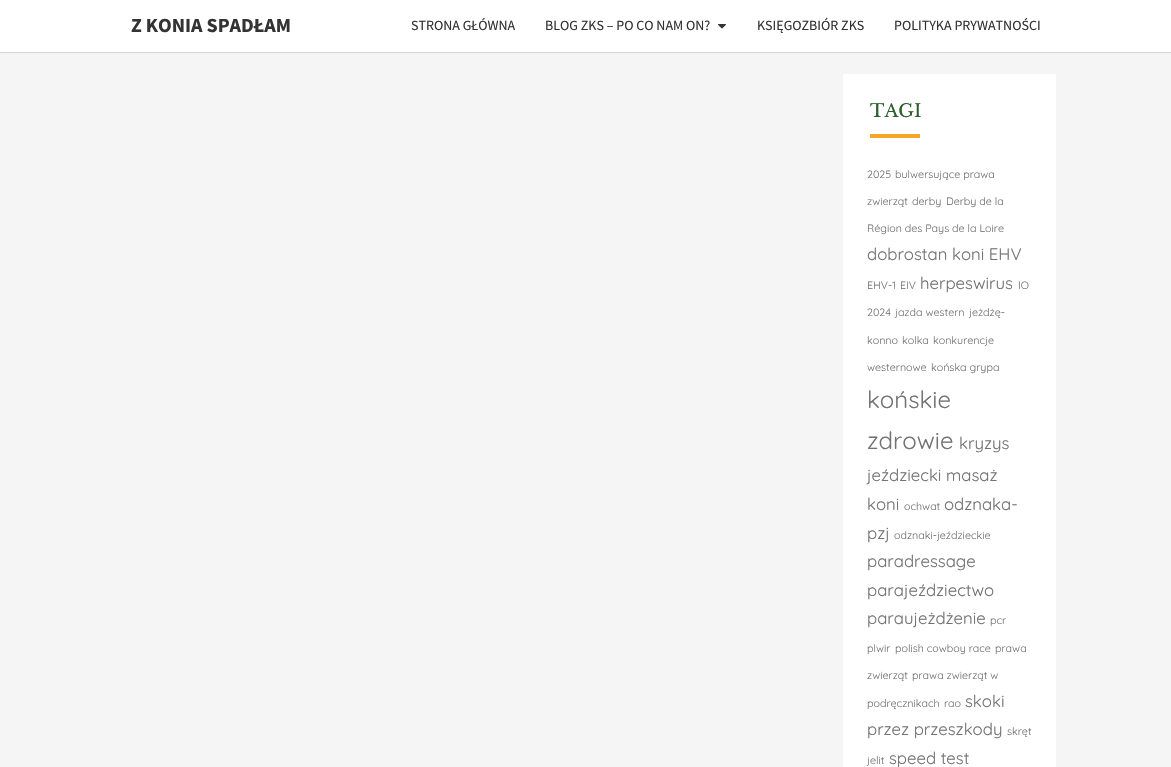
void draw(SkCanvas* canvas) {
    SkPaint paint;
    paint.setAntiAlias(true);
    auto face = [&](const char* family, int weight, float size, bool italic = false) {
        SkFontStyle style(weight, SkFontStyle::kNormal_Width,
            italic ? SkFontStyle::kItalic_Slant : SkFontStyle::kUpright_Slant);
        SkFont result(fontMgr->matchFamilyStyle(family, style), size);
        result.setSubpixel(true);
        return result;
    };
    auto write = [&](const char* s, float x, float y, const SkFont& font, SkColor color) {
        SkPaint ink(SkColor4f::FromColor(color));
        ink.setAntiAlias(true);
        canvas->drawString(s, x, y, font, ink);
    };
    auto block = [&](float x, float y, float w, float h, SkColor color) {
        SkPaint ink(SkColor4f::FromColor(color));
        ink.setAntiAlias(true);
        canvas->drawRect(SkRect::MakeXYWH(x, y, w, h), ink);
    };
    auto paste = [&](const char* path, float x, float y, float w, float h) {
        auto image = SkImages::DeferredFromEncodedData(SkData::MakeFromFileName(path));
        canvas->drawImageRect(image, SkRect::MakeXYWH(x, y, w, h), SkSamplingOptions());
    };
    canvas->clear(SkColorSetRGB(245, 245, 245));
    paint.setColor(SkColorSetARGB(51, 100, 100, 100));
    paint.setMaskFilter(SkMaskFilter::MakeBlur(kNormal_SkBlurStyle, 0.5f));
    canvas->drawRect(SkRect::MakeXYWH(0, 1, 1171, 52), paint);
    paint.setMaskFilter(nullptr);
    block(0, 0, 1171, 52, SK_ColorWHITE);
    auto kFont1 = face("Source Sans Pro", 700, 20);
    write("Z KONIA SPADŁAM", 131, 32, kFont1, SkColorSetRGB(51, 51, 51));
    auto kFont2 = face("Source Sans Pro", 400, 14);
    write("STRONA GŁÓWNA", 411, 30, kFont2, SkColorSetRGB(51, 51, 51));
    write("BLOG ZKS – PO CO NAM ON?", 545, 30, kFont2, SkColorSetRGB(51, 51, 51));
    paste("pic1.png", 718, 24, 8, 5);
    write("KSIĘGOZBIÓR ZKS", 757, 30, kFont2, SkColorSetRGB(51, 51, 51));
    write("POLITYKA PRYWATNOŚCI", 894, 30, kFont2, SkColorSetRGB(51, 51, 51));
    block(843, 74, 213, 693, SK_ColorWHITE);
    auto kFont3 = face("Libre Baskerville", 400, 18);
    write("TAGI", 870, 117, kFont3, SkColorSetRGB(44, 95, 45));
    block(870, 134, 50, 4, SkColorSetRGB(245, 166, 35));
    auto kFont4 = face("Quicksand", 400, 10.7f);
    write("2025", 867, 178, kFont4, SkColorSetRGB(114, 114, 114));
    write("bulwersujące prawa", 895, 178, kFont4, SkColorSetRGB(114, 114, 114));
    write("zwierząt", 867, 205, kFont4, SkColorSetRGB(114, 114, 114));
    write("derby", 912, 205, kFont4, SkColorSetRGB(114, 114, 114));
    write("Derby de la", 946, 205, kFont4, SkColorSetRGB(114, 114, 114));
    write("Région des Pays de la Loire", 867, 232, kFont4, SkColorSetRGB(114, 114, 114));
    auto kFont5 = face("Quicksand", 400, 16.75f);
    write("dobrostan koni EHV", 867, 260, kFont5, SkColorSetRGB(114, 114, 114));
    write("EHV-1", 867, 289, kFont4, SkColorSetRGB(114, 114, 114));
    write("EIV", 900, 289, kFont4, SkColorSetRGB(114, 114, 114));
    write("herpeswirus", 920, 289, kFont5, SkColorSetRGB(114, 114, 114));
    write("IO", 1018, 289, kFont4, SkColorSetRGB(114, 114, 114));
    write("2024", 867, 316, kFont4, SkColorSetRGB(114, 114, 114));
    write("jazda western", 895, 316, kFont4, SkColorSetRGB(114, 114, 114));
    write("jeżdżę-", 969, 316, kFont4, SkColorSetRGB(114, 114, 114));
    write("konno", 867, 344, kFont4, SkColorSetRGB(114, 114, 114));
    write("kolka", 902, 344, kFont4, SkColorSetRGB(114, 114, 114));
    write("konkurencje", 933, 344, kFont4, SkColorSetRGB(114, 114, 114));
    write("westernowe", 867, 371, kFont4, SkColorSetRGB(114, 114, 114));
    write("końska grypa", 931, 371, kFont4, SkColorSetRGB(114, 114, 114));
    auto kFont6 = face("Quicksand", 400, 24);
    write("końskie", 867, 408, kFont6, SkColorSetRGB(114, 114, 114));
    write("zdrowie", 867, 449, kFont6, SkColorSetRGB(114, 114, 114));
    write("kryzys", 959, 449, kFont5, SkColorSetRGB(114, 114, 114));
    write("jeździecki masaż", 867, 481, kFont5, SkColorSetRGB(114, 114, 114));
    write("koni", 867, 510, kFont5, SkColorSetRGB(114, 114, 114));
    write("ochwat", 904, 510, kFont4, SkColorSetRGB(114, 114, 114));
    write("odznaka-", 944, 510, kFont5, SkColorSetRGB(114, 114, 114));
    write("pzj", 867, 539, kFont5, SkColorSetRGB(114, 114, 114));
    write("odznaki-jeździeckie", 894, 539, kFont4, SkColorSetRGB(114, 114, 114));
    write("paradressage", 867, 567, kFont5, SkColorSetRGB(114, 114, 114));
    write("parajeździectwo", 867, 596, kFont5, SkColorSetRGB(114, 114, 114));
    write("paraujeżdżenie", 867, 624, kFont5, SkColorSetRGB(114, 114, 114));
    write("pcr", 990, 624, kFont4, SkColorSetRGB(114, 114, 114));
    write("plwir", 867, 652, kFont4, SkColorSetRGB(114, 114, 114));
    write("polish cowboy race", 895, 652, kFont4, SkColorSetRGB(114, 114, 114));
    write("prawa", 995, 652, kFont4, SkColorSetRGB(114, 114, 114));
    write("zwierząt", 867, 679, kFont4, SkColorSetRGB(114, 114, 114));
    write("prawa zwierząt w", 912, 679, kFont4, SkColorSetRGB(114, 114, 114));
    write("podręcznikach", 867, 707, kFont4, SkColorSetRGB(114, 114, 114));
    write("rao", 944, 707, kFont4, SkColorSetRGB(114, 114, 114));
    write("skoki", 965, 707, kFont5, SkColorSetRGB(114, 114, 114));
    write("przez przeszkody", 867, 735, kFont5, SkColorSetRGB(114, 114, 114));
    write("skręt", 1007, 735, kFont4, SkColorSetRGB(114, 114, 114));
    write("jelit", 867, 764, kFont4, SkColorSetRGB(114, 114, 114));
    write("speed test", 889, 764, kFont5, SkColorSetRGB(114, 114, 114));
}
